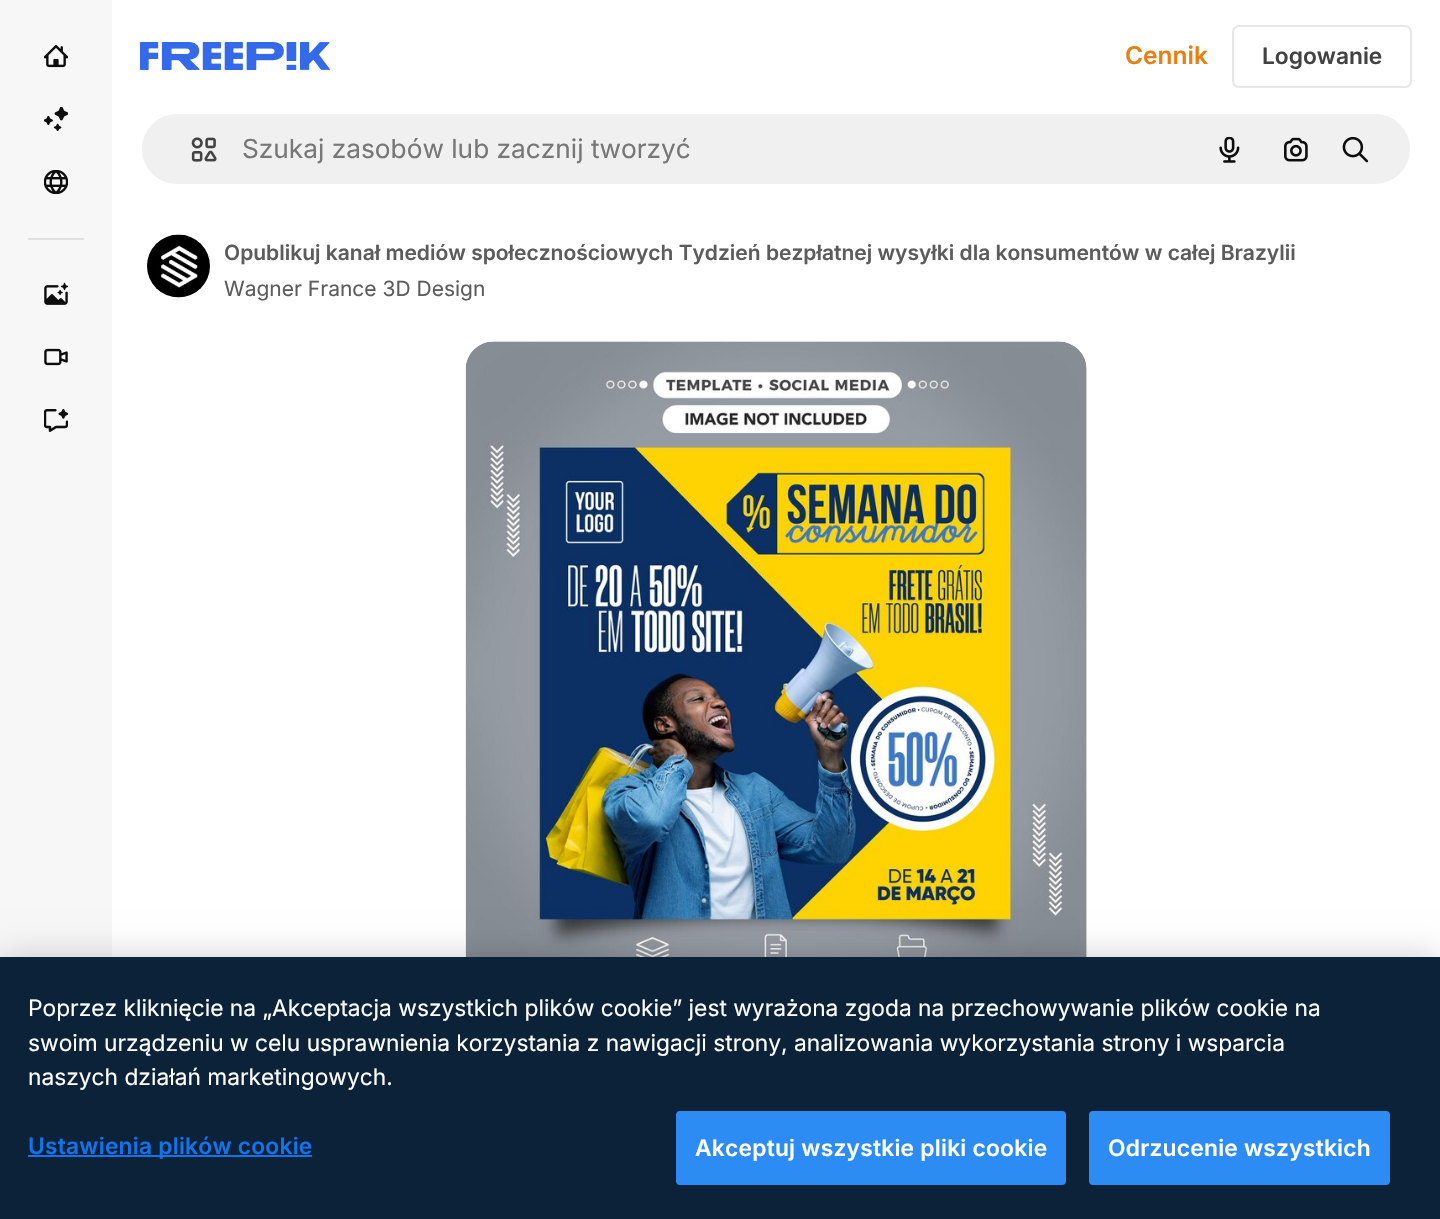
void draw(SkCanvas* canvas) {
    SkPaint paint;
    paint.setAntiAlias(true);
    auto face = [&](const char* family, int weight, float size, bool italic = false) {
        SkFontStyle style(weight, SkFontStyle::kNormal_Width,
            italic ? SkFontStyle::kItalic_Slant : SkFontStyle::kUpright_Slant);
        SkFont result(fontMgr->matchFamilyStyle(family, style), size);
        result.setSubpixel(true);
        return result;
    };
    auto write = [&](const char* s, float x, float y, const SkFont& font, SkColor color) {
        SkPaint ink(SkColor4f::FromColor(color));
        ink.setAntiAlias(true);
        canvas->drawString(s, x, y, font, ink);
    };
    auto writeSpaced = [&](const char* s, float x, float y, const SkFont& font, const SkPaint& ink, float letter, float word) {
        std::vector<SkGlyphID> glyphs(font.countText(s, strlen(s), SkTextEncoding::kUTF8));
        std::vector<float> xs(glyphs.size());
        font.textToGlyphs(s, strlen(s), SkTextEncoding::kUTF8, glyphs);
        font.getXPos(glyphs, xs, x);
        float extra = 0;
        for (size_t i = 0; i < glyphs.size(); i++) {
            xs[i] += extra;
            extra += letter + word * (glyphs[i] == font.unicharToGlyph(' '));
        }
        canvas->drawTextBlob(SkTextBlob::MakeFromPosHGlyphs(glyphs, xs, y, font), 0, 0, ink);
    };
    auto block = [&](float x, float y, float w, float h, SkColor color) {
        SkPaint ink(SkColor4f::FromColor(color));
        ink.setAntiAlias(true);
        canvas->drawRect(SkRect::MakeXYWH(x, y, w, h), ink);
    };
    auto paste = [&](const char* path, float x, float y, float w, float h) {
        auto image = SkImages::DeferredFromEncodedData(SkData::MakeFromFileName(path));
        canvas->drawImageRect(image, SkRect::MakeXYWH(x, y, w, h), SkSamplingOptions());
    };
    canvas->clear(SK_ColorWHITE);
    block(0, 0, 112, 957, SkColorSetRGB(247, 247, 247));
    paste("pic1.png", 44, 45, 24, 23);
    paste("pic2.png", 44, 107, 24, 24);
    paste("pic3.png", 44, 170, 24, 24);
    block(28, 238, 56, 2, SkColorSetRGB(224, 224, 224));
    paste("pic4.png", 44, 282, 24, 23);
    paste("pic5.png", 44, 348, 24, 18);
    paste("pic6.png", 44, 409, 24, 23);
    paste("pic7.png", 140, 42, 190, 28);
    auto kFont1 = face("Inter", 600, 24.5f);
    write("Cennik", 1125, 64, kFont1, SkColorSetRGB(234, 126, 17));
    paint.setStyle(SkPaint::kStroke_Style);
    paint.setStrokeWidth(2);
    paint.setColor(SkColorSetRGB(231, 231, 231));
    canvas->drawRoundRect(SkRect::MakeXYWH(1233, 26, 178, 61), 6, 6, paint);
    auto kFont2 = face("Inter", 600, 22.75f);
    write("Logowanie", 1262, 64, kFont2, SkColorSetRGB(66, 66, 66));
    paint.setStyle(SkPaint::kFill_Style);
    paint.setColor(SkColorSetRGB(240, 240, 240));
    canvas->drawRoundRect(SkRect::MakeXYWH(141, 113, 1270, 72), 36, 36, paint);
    paint.setStyle(SkPaint::kStroke_Style);
    paint.setColor(SK_ColorWHITE);
    canvas->drawRoundRect(SkRect::MakeXYWH(141, 113, 1270, 72), 36, 36, paint);
    paste("pic8.png", 191, 137, 26, 25);
    auto kFont3 = face("Inter", 400, 26.25f);
    write("Szukaj zasobów lub zacznij tworzyć", 242, 158, kFont3, SkColorSetRGB(119, 119, 119));
    paste("pic9.png", 1219, 137, 21, 26);
    paste("pic10.png", 1284, 137, 24, 25);
    paste("pic11.png", 1342, 137, 27, 26);
    paste("pic12.png", 147, 234, 63, 64);
    auto kFont4 = face("Inter", 600, 21);
    write("Opublikuj kanał mediów społecznościowych Tydzień bezpłatnej wysyłki dla konsumentów w całej Brazylii", 224, 260, kFont4, SkColorSetRGB(92, 92, 92));
    auto kFont5 = face("Inter", 400, 21);
    write("Wagner France 3D Design", 224, 296, kFont5, SkColorSetRGB(92, 92, 92));
    paste("pic13.png", 465, 341, 622, 616);
    paint.setStyle(SkPaint::kFill_Style);
    paint.setColor(SkColorSetARGB(51, 0, 0, 0));
    paint.setMaskFilter(SkMaskFilter::MakeBlur(kNormal_SkBlurStyle, 16));
    canvas->drawRect(SkRect::MakeXYWH(0, 957, 1440, 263), paint);
    paint.setMaskFilter(nullptr);
    block(0, 957, 1440, 262, SkColorSetRGB(11, 34, 57));
    auto kFont6 = face("Inter", 400, 22.75f);
    write("Poprzez kliknięcie na „Akceptacja wszystkich plików cookie” jest wyrażona zgoda na przechowywanie plików cookie na", 28, 1016, kFont6, SK_ColorWHITE);
    write("swoim urządzeniu w celu usprawnienia korzystania z nawigacji strony, analizowania wykorzystania strony i wsparcia", 28, 1051, kFont6, SK_ColorWHITE);
    write("naszych działań marketingowych.", 28, 1085, kFont6, SK_ColorWHITE);
    block(28, 1155, 284, 2, SkColorSetRGB(18, 115, 235));
    paint.setColor(SkColorSetRGB(18, 115, 235));
    writeSpaced("Ustawienia plików cookie", 28, 1154, kFont2, paint, 0.25f, 0);
    paint.setColor(SkColorSetRGB(44, 140, 244));
    canvas->drawRoundRect(SkRect::MakeXYWH(677, 1112, 388, 72), 3, 3, paint);
    paint.setStyle(SkPaint::kStroke_Style);
    canvas->drawRoundRect(SkRect::MakeXYWH(677, 1112, 388, 72), 3, 3, paint);
    paint.setStyle(SkPaint::kFill_Style);
    paint.setColor(SK_ColorWHITE);
    writeSpaced("Akceptuj wszystkie pliki cookie", 695, 1156, kFont2, paint, 0.25f, 0);
    paint.setColor(SkColorSetRGB(44, 140, 244));
    canvas->drawRoundRect(SkRect::MakeXYWH(1090, 1112, 299, 72), 3, 3, paint);
    paint.setStyle(SkPaint::kStroke_Style);
    canvas->drawRoundRect(SkRect::MakeXYWH(1090, 1112, 299, 72), 3, 3, paint);
    paint.setStyle(SkPaint::kFill_Style);
    paint.setColor(SK_ColorWHITE);
    writeSpaced("Odrzucenie wszystkich", 1108, 1156, kFont2, paint, 0.25f, 0);
}
